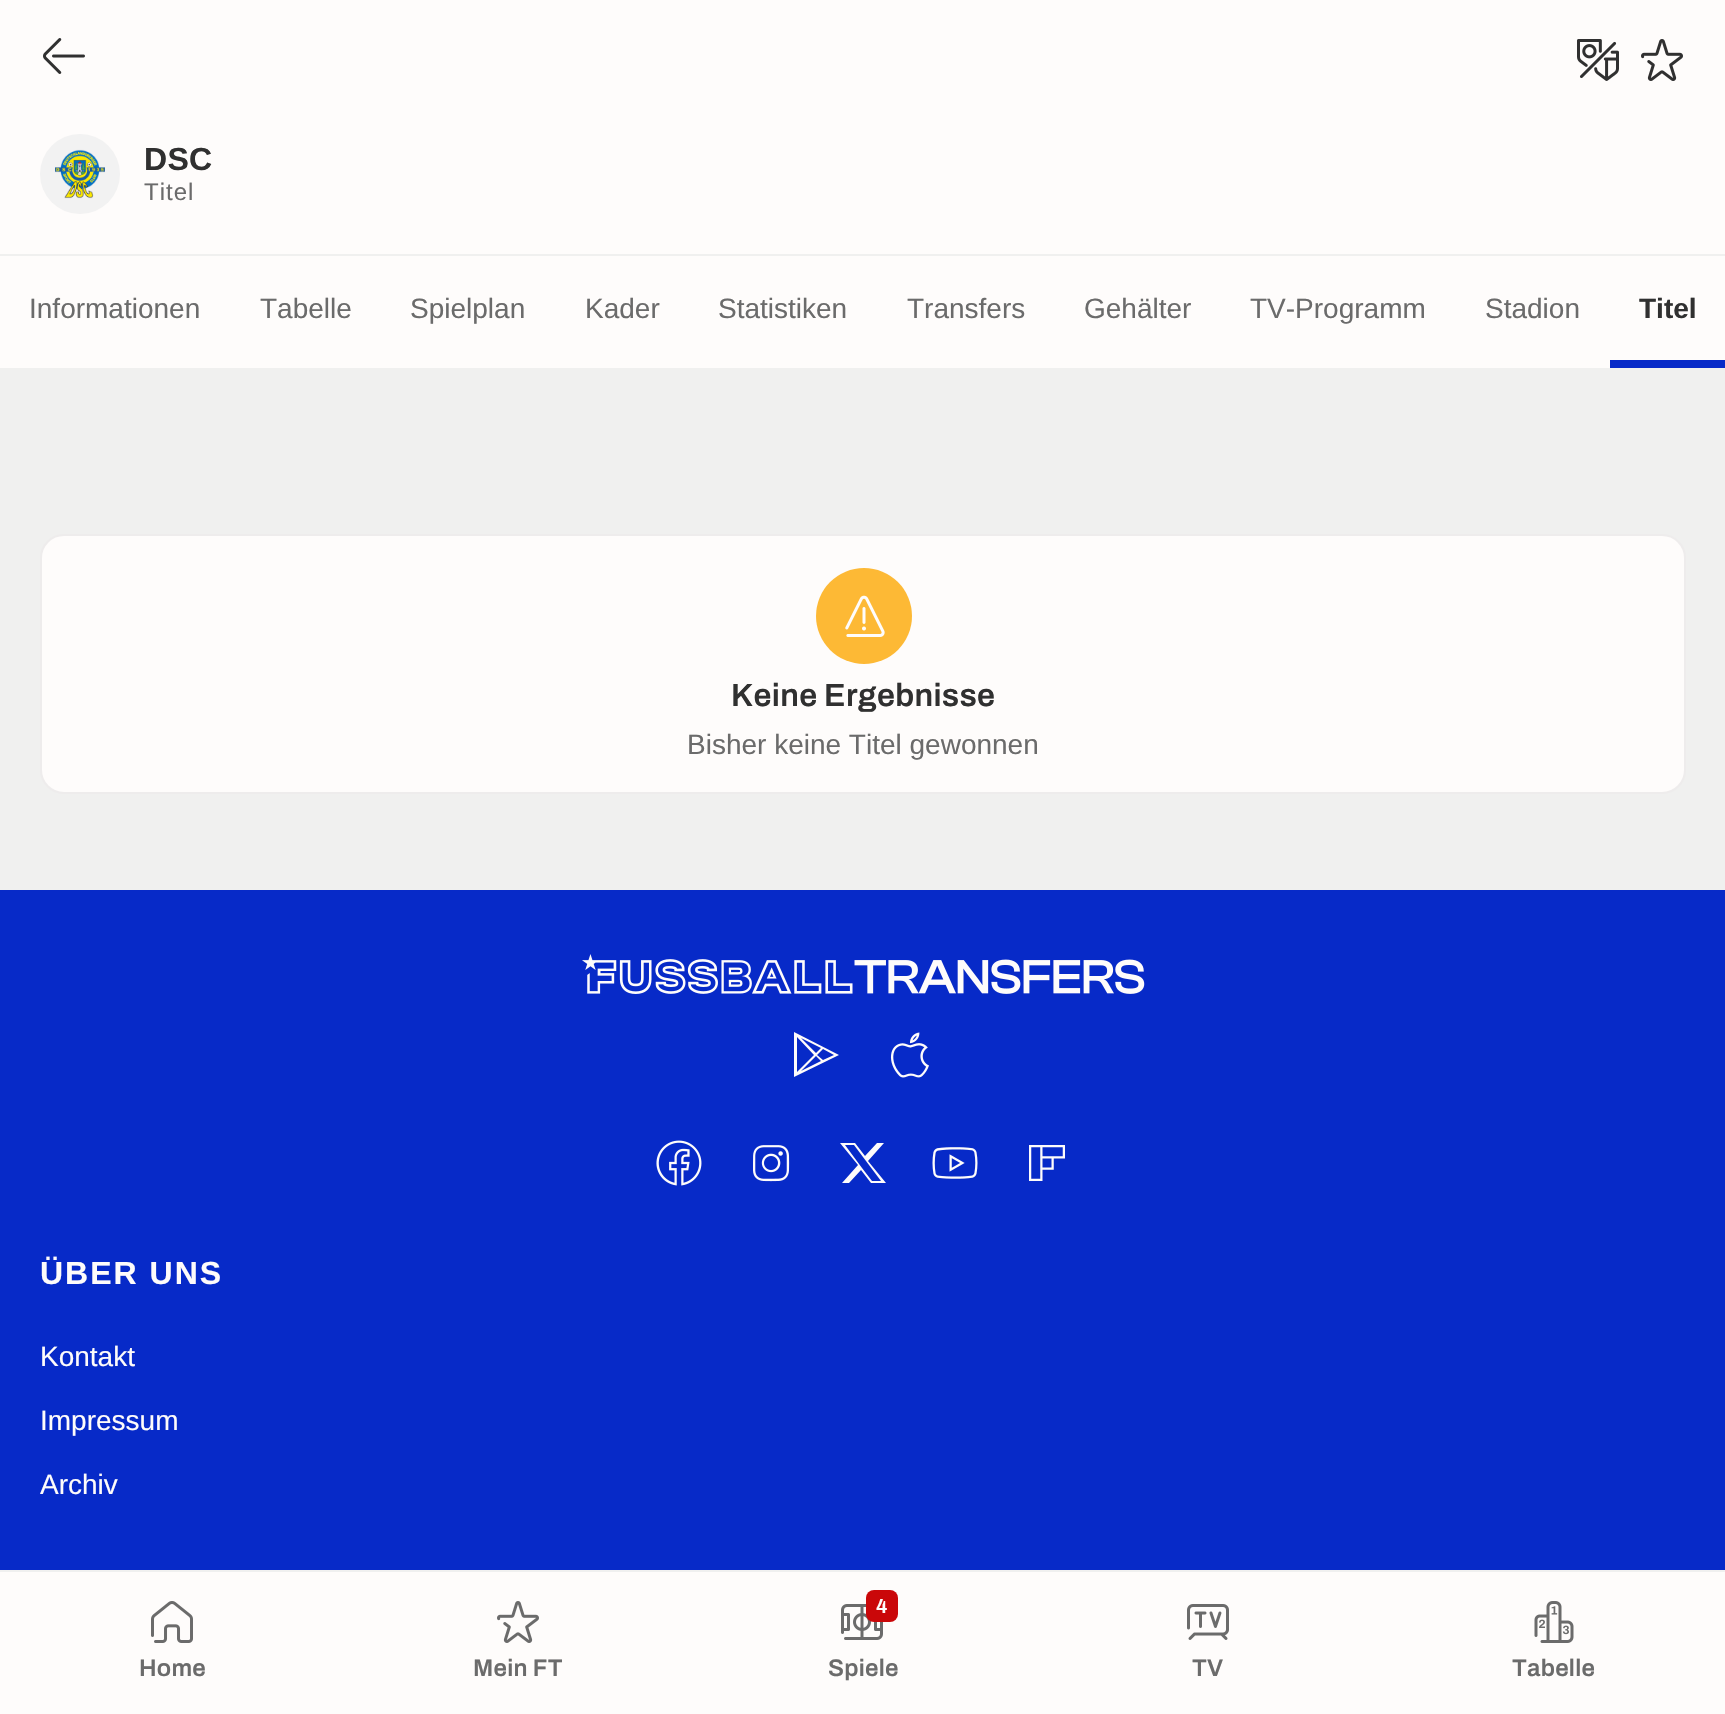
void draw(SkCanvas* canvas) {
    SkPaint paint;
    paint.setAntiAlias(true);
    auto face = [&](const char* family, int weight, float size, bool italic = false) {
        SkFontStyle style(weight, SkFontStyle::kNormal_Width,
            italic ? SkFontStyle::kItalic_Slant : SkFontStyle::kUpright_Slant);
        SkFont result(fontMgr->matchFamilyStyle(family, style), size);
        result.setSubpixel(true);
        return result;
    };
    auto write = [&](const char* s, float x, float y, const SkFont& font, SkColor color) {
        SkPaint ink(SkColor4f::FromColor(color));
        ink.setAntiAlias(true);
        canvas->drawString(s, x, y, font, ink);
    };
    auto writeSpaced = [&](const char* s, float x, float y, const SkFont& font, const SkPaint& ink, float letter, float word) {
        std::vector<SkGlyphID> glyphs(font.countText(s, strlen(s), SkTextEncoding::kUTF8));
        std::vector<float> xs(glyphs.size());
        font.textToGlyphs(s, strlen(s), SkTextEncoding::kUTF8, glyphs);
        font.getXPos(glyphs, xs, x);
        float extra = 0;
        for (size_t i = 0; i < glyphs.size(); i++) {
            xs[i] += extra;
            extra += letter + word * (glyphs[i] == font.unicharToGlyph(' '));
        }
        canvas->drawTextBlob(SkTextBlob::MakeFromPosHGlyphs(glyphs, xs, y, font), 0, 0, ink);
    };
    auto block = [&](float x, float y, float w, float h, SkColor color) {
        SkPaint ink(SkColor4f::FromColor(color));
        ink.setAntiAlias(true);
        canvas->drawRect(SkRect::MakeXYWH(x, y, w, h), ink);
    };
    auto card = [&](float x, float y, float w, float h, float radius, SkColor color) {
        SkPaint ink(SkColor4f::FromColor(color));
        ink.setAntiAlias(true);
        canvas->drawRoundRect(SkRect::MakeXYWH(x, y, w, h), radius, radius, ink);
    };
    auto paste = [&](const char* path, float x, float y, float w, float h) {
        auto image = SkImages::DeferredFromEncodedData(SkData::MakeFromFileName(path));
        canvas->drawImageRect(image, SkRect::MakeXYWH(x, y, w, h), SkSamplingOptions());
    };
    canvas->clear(SkColorSetRGB(254, 252, 251));
    paste("pic1.png", 43, 38, 42, 36);
    paste("pic2.png", 1577, 39, 42, 42);
    paste("pic3.png", 1641, 39, 42, 42);
    paint.setColor(SkColorSetRGB(242, 242, 242));
    canvas->drawCircle(80, 174, 40, paint);
    paste("pic4.png", 55, 149, 50, 50);
    auto kFont1 = face("Liberation Sans", 700, 32);
    paint.setColor(SkColorSetRGB(48, 48, 48));
    writeSpaced("DSC", 144, 170, kFont1, paint, 0.3f, 0);
    auto kFont2 = face("Liberation Sans", 400, 24);
    paint.setColor(SkColorSetRGB(107, 107, 107));
    writeSpaced("Titel", 144, 200, kFont2, paint, 1, 0);
    block(0, 254, 1725, 636, SkColorSetRGB(240, 240, 239));
    block(0, 256, 1725, 112, SkColorSetRGB(254, 252, 251));
    auto kFont3 = face("Liberation Sans", 400, 28);
    write("Informationen", 29, 318, kFont3, SkColorSetRGB(107, 107, 107));
    write("Tabelle", 260, 318, kFont3, SkColorSetRGB(107, 107, 107));
    write("Spielplan", 410, 318, kFont3, SkColorSetRGB(107, 107, 107));
    write("Kader", 585, 318, kFont3, SkColorSetRGB(107, 107, 107));
    write("Statistiken", 718, 318, kFont3, SkColorSetRGB(107, 107, 107));
    write("Transfers", 907, 318, kFont3, SkColorSetRGB(107, 107, 107));
    write("Gehälter", 1084, 318, kFont3, SkColorSetRGB(107, 107, 107));
    write("TV-Programm", 1250, 318, kFont3, SkColorSetRGB(107, 107, 107));
    write("Stadion", 1485, 318, kFont3, SkColorSetRGB(107, 107, 107));
    auto kFont4 = face("Liberation Sans", 700, 28);
    write("Titel", 1639, 318, kFont4, SkColorSetRGB(48, 48, 48));
    block(1610, 360, 115, 8, SkColorSetRGB(7, 42, 200));
    paint.setColor(SkColorSetRGB(254, 252, 251));
    canvas->drawRoundRect(SkRect::MakeXYWH(41, 535, 1644, 258), 23, 23, paint);
    paint.setStyle(SkPaint::kStroke_Style);
    paint.setStrokeWidth(2);
    paint.setColor(SkColorSetRGB(238, 236, 236));
    canvas->drawRoundRect(SkRect::MakeXYWH(41, 535, 1644, 258), 23, 23, paint);
    paint.setStyle(SkPaint::kFill_Style);
    paint.setColor(SkColorSetRGB(253, 185, 53));
    canvas->drawCircle(864, 616, 48, paint);
    paste("pic5.png", 845, 595, 40, 42);
    auto kFont5 = face("Archivo", 600, 32);
    paint.setColor(SkColorSetRGB(48, 48, 48));
    writeSpaced("Keine Ergebnisse", 731, 706, kFont5, paint, 0.3f, 0);
    write("Bisher keine Titel gewonnen", 687, 754, kFont3, SkColorSetRGB(107, 107, 107));
    block(0, 1570, 1725, 2, SkColorSetRGB(240, 240, 239));
    paste("pic6.png", 151, 1601, 42, 42);
    auto kFont6 = face("Archivo", 600, 24);
    paint.setColor(SkColorSetRGB(107, 107, 107));
    writeSpaced("Home", 139, 1676, kFont6, paint, 0.25f, 0);
    paste("pic7.png", 497, 1601, 42, 42);
    writeSpaced("Mein FT", 473, 1676, kFont6, paint, 0.25f, 0);
    paste("pic8.png", 841, 1604, 42, 36);
    card(866, 1590, 32, 32, 8, SkColorSetRGB(202, 7, 9));
    auto kFont7 = face("Archivo", 600, 20);
    paint.setColor(SkColorSetRGB(254, 252, 251));
    writeSpaced("4", 876, 1613, kFont7, paint, 0.25f, 0);
    paint.setColor(SkColorSetRGB(107, 107, 107));
    writeSpaced("Spiele", 828, 1676, kFont6, paint, 0.25f, 0);
    paste("pic9.png", 1187, 1604, 42, 36);
    writeSpaced("TV", 1192, 1676, kFont6, paint, 0.25f, 0);
    paste("pic10.png", 1534, 1601, 40, 42);
    writeSpaced("Tabelle", 1512, 1676, kFont6, paint, 0.25f, 0);
    block(0, 890, 1725, 680, SkColorSetRGB(7, 42, 200));
    paste("pic11.png", 582, 954, 563, 40);
    paint.setColor(SkColorSetRGB(254, 252, 251));
    canvas->drawPath(SkPathBuilder().moveTo(794, 1032).lineTo(794, 1077).lineTo(839, 1055).close().moveTo(814, 1055).lineTo(797, 1072).lineTo(797, 1037).close().moveTo(801, 1038).lineTo(821, 1048).lineTo(816, 1053).close().moveTo(816, 1056).lineTo(821, 1061).lineTo(801, 1071).close().moveTo(817, 1055).lineTo(823, 1049).lineTo(834, 1055).lineTo(823, 1060).close().detach(), paint);
    paste("pic12.png", 890, 1032, 39, 46);
    paste("pic13.png", 656, 1140, 46, 46);
    paste("pic14.png", 753, 1145, 37, 37);
    canvas->drawPath(SkPathBuilder().moveTo(868, 1161).lineTo(884, 1143).lineTo(877, 1143).lineTo(865, 1156).lineTo(855, 1143).lineTo(840, 1143).lineTo(858, 1165).lineTo(842, 1183).lineTo(849, 1183).lineTo(861, 1170).lineTo(871, 1183).lineTo(886, 1183).close().moveTo(862, 1168).lineTo(845, 1145).lineTo(854, 1145).lineTo(881, 1181).lineTo(872, 1181).close().detach(), paint);
    paste("pic15.png", 932, 1147, 46, 32);
    paste("pic16.png", 1029, 1145, 36, 36);
    writeSpaced("ÜBER UNS", 40, 1284, kFont1, paint, 2, 0);
    write("Kontakt", 40, 1366, kFont3, SkColorSetRGB(254, 252, 251));
    write("Impressum", 40, 1430, kFont3, SkColorSetRGB(254, 252, 251));
    write("Archiv", 40, 1494, kFont3, SkColorSetRGB(254, 252, 251));
}
